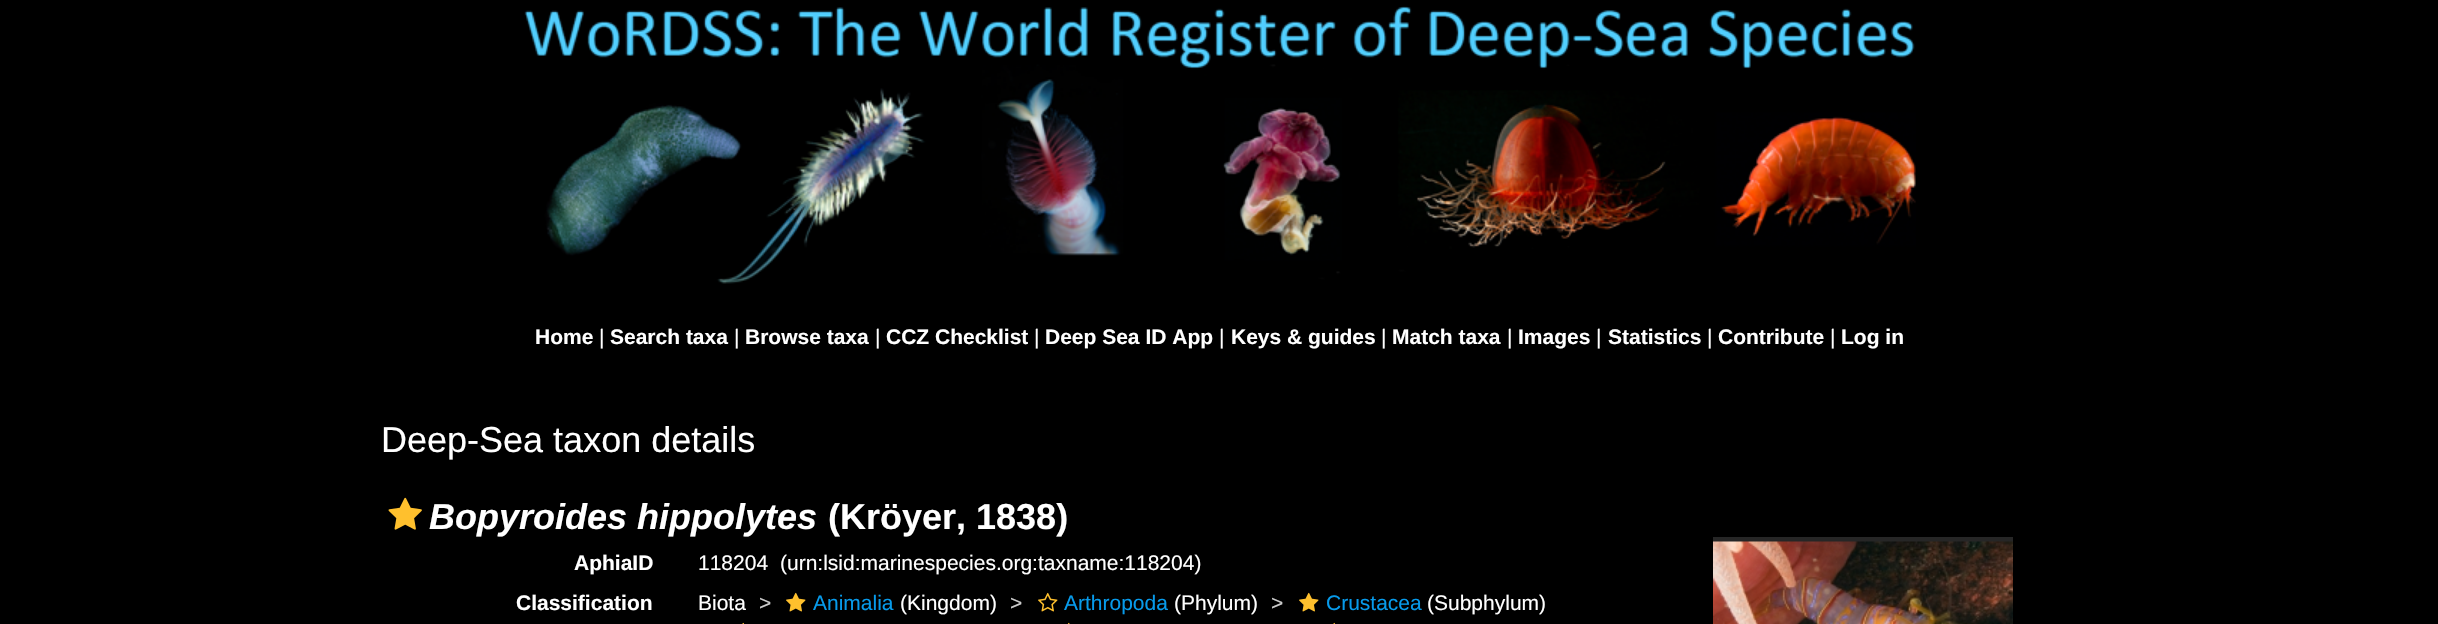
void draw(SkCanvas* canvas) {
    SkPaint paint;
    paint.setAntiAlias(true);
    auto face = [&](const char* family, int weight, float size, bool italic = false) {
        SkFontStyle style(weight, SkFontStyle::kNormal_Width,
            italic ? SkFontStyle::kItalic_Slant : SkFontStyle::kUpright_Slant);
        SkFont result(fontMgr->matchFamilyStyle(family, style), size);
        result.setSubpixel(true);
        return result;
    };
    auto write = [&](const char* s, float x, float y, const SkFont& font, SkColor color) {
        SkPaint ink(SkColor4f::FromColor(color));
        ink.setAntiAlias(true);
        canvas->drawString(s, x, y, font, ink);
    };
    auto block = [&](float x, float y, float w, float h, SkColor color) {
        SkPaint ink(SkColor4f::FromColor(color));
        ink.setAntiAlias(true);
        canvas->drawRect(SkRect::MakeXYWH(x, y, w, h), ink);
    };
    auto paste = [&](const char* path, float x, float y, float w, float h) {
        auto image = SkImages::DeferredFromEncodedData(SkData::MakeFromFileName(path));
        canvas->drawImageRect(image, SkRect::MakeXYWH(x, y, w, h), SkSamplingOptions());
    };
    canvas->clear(SK_ColorBLACK);
    paste("pic1.png", 524, 6, 1392, 278);
    auto kFont1 = face("Liberation Sans", 700, 21);
    write("Home", 535, 344, kFont1, SK_ColorWHITE);
    auto kFont2 = face("Liberation Sans", 400, 21);
    write("|", 599, 344, kFont2, SK_ColorWHITE);
    write("Search taxa", 610, 344, kFont1, SK_ColorWHITE);
    write("|", 734, 344, kFont2, SK_ColorWHITE);
    write("Browse taxa", 745, 344, kFont1, SK_ColorWHITE);
    write("|", 875, 344, kFont2, SK_ColorWHITE);
    write("CCZ Checklist", 886, 344, kFont1, SK_ColorWHITE);
    write("|", 1034, 344, kFont2, SK_ColorWHITE);
    write("Deep Sea ID App", 1045, 344, kFont1, SK_ColorWHITE);
    write("|", 1219, 344, kFont2, SK_ColorWHITE);
    write("Keys & guides", 1231, 344, kFont1, SK_ColorWHITE);
    write("|", 1381, 344, kFont2, SK_ColorWHITE);
    write("Match taxa", 1392, 344, kFont1, SK_ColorWHITE);
    write("|", 1507, 344, kFont2, SK_ColorWHITE);
    write("Images", 1518, 344, kFont1, SK_ColorWHITE);
    write("|", 1596, 344, kFont2, SK_ColorWHITE);
    write("Statistics", 1608, 344, kFont1, SK_ColorWHITE);
    write("|", 1707, 344, kFont2, SK_ColorWHITE);
    write("Contribute", 1718, 344, kFont1, SK_ColorWHITE);
    write("|", 1830, 344, kFont2, SK_ColorWHITE);
    write("Log in", 1841, 344, kFont1, SK_ColorWHITE);
    auto kFont3 = face("Liberation Sans", 400, 36);
    write("Deep-Sea taxon details", 381, 452, kFont3, SK_ColorWHITE);
    paste("pic2.png", 388, 497, 34, 33);
    auto kFont4 = face("Liberation Sans", 700, 36, true);
    write("Bopyroides hippolytes", 429, 529, kFont4, SK_ColorWHITE);
    auto kFont5 = face("Liberation Sans", 700, 36);
    write("(Kröyer, 1838)", 828, 529, kFont5, SK_ColorWHITE);
    write("AphiaID", 574, 570, kFont1, SK_ColorWHITE);
    write("118204", 698, 570, kFont2, SK_ColorWHITE);
    write("(urn:lsid:marinespecies.org:taxname:118204)", 780, 570, kFont2, SK_ColorWHITE);
    block(1713, 537, 300, 5, SkColorSetRGB(38, 38, 38));
    paste("pic3.png", 1713, 541, 300, 83);
    write("Classification", 516, 610, kFont1, SK_ColorWHITE);
    write("Biota", 698, 610, kFont2, SK_ColorWHITE);
    write(">", 759, 610, kFont2, SkColorSetRGB(204, 204, 204));
    paste("pic4.png", 786, 592, 20, 20);
    write("Animalia", 813, 610, kFont2, SkColorSetRGB(7, 155, 235));
    write("(Kingdom)", 900, 610, kFont2, SK_ColorWHITE);
    write(">", 1010, 610, kFont2, SkColorSetRGB(204, 204, 204));
    paste("pic5.png", 1038, 592, 20, 20);
    write("Arthropoda", 1064, 610, kFont2, SkColorSetRGB(7, 155, 235));
    write("(Phylum)", 1174, 610, kFont2, SK_ColorWHITE);
    write(">", 1271, 610, kFont2, SkColorSetRGB(204, 204, 204));
    paste("pic4.png", 1299, 592, 20, 20);
    write("Crustacea", 1326, 610, kFont2, SkColorSetRGB(7, 155, 235));
    write("(Subphylum)", 1427, 610, kFont2, SK_ColorWHITE);
    paste("pic6.png", 742, 622, 2, 2);
    paste("pic7.png", 1068, 622, 2, 2);
    paste("pic6.png", 1333, 622, 2, 2);
}
